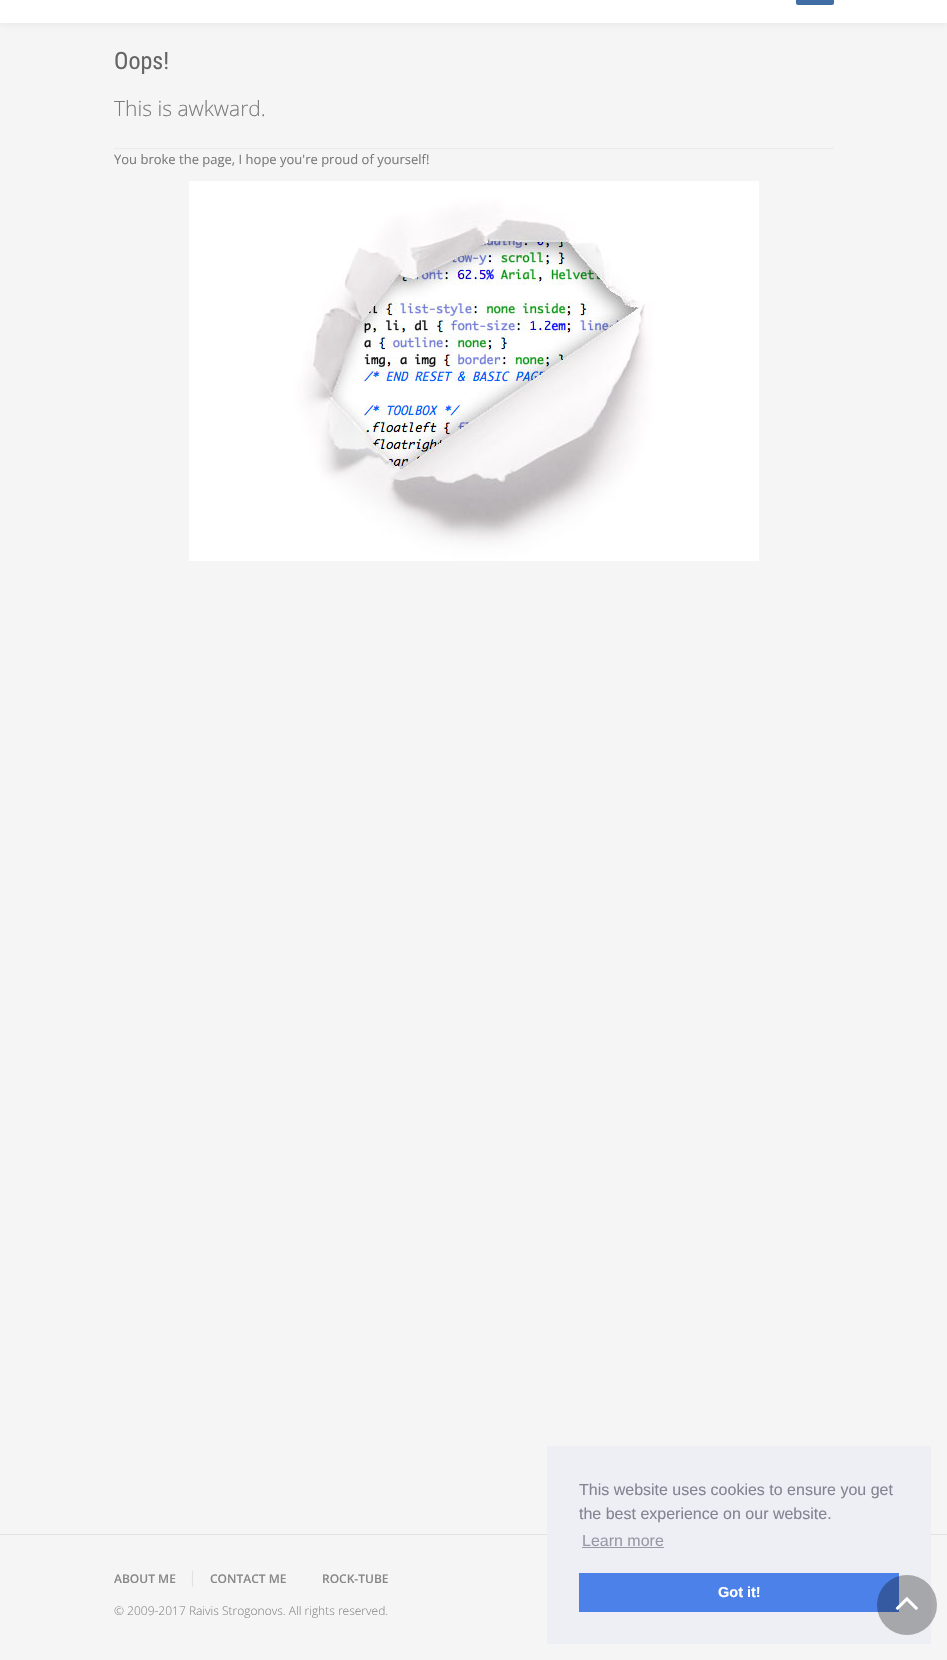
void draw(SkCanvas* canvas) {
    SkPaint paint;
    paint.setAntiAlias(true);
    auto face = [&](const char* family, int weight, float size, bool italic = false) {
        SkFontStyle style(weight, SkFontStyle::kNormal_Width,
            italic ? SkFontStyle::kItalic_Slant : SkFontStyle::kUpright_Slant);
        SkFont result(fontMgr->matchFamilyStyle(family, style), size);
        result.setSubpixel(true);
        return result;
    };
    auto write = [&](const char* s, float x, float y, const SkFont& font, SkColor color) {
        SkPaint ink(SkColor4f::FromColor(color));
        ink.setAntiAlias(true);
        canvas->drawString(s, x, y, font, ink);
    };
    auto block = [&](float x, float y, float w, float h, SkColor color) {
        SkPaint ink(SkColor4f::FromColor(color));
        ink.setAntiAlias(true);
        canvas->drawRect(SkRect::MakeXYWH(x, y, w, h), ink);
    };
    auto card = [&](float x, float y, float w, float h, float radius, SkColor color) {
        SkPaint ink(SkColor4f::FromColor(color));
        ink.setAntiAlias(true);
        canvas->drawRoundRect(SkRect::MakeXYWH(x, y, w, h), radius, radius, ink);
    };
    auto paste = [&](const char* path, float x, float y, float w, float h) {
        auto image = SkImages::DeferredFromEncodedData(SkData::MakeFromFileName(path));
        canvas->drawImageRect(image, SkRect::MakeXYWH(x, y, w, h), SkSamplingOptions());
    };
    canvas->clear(SkColorSetRGB(245, 245, 245));
    paint.setColor(SkColorSetARGB(128, 224, 224, 224));
    paint.setMaskFilter(SkMaskFilter::MakeBlur(kNormal_SkBlurStyle, 3));
    canvas->drawRect(SkRect::MakeXYWH(0, -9, 947, 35), paint);
    paint.setMaskFilter(nullptr);
    block(0, 0, 947, 23, SK_ColorWHITE);
    card(796, -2, 38, 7, 2, SkColorSetRGB(64, 109, 164));
    block(114, 148, 720, 1, SkColorSetRGB(234, 234, 234));
    auto kFont1 = face("Roboto Condensed", 400, 24);
    write("Oops!", 114, 69, kFont1, SkColorSetRGB(101, 101, 101));
    auto kFont2 = face("Open Sans", 300, 21);
    write("This is awkward.", 114, 116, kFont2, SkColorSetRGB(123, 123, 123));
    auto kFont3 = face("Open Sans", 400, 13);
    write("You broke the page, I hope you're proud of yourself!", 114, 164, kFont3, SkColorSetRGB(123, 123, 123));
    paste("pic1.png", 189, 181, 570, 380);
    block(0, 1534, 947, 1, SkColorSetRGB(225, 225, 225));
    block(547, 1446, 384, 198, SkColorSetRGB(237, 239, 245));
    block(579, 1573, 320, 39, SkColorSetRGB(75, 129, 232));
    paint.setColor(SkColorSetARGB(77, 0, 0, 0));
    canvas->drawCircle(907, 1605, 30, paint);
    paste("pic2.png", 895, 1597, 23, 13);
    auto kFont4 = face("Open Sans", 600, 12);
    write("ABOUT ME", 114, 1583, kFont4, SkColorSetRGB(135, 135, 135));
    auto kFont5 = face("Open Sans", 300, 16);
    write("|", 188, 1583, kFont5, SkColorSetRGB(218, 218, 218));
    write("CONTACT ME", 210, 1583, kFont4, SkColorSetRGB(135, 135, 135));
    write("ROCK-TUBE", 322, 1583, kFont4, SkColorSetRGB(135, 135, 135));
    auto kFont6 = face("Open Sans", 300, 12);
    write("© 2009-2017 Raivis Strogonovs. All rights reserved.", 114, 1615, kFont6, SkColorSetRGB(135, 135, 135));
    auto kFont7 = face("Liberation Sans", 400, 16);
    write("This website uses cookies to ensure you get", 579, 1495, kFont7, SkColorSetRGB(131, 131, 145));
    write("the best experience on our website.", 579, 1519, kFont7, SkColorSetRGB(131, 131, 145));
    write("Learn more", 582, 1546, kFont7, SkColorSetRGB(152, 153, 165));
    block(582, 1547, 82, 1, SkColorSetRGB(152, 153, 165));
    auto kFont8 = face("Liberation Sans", 700, 14.5f);
    write("Got it!", 718, 1597, kFont8, SK_ColorWHITE);
}
